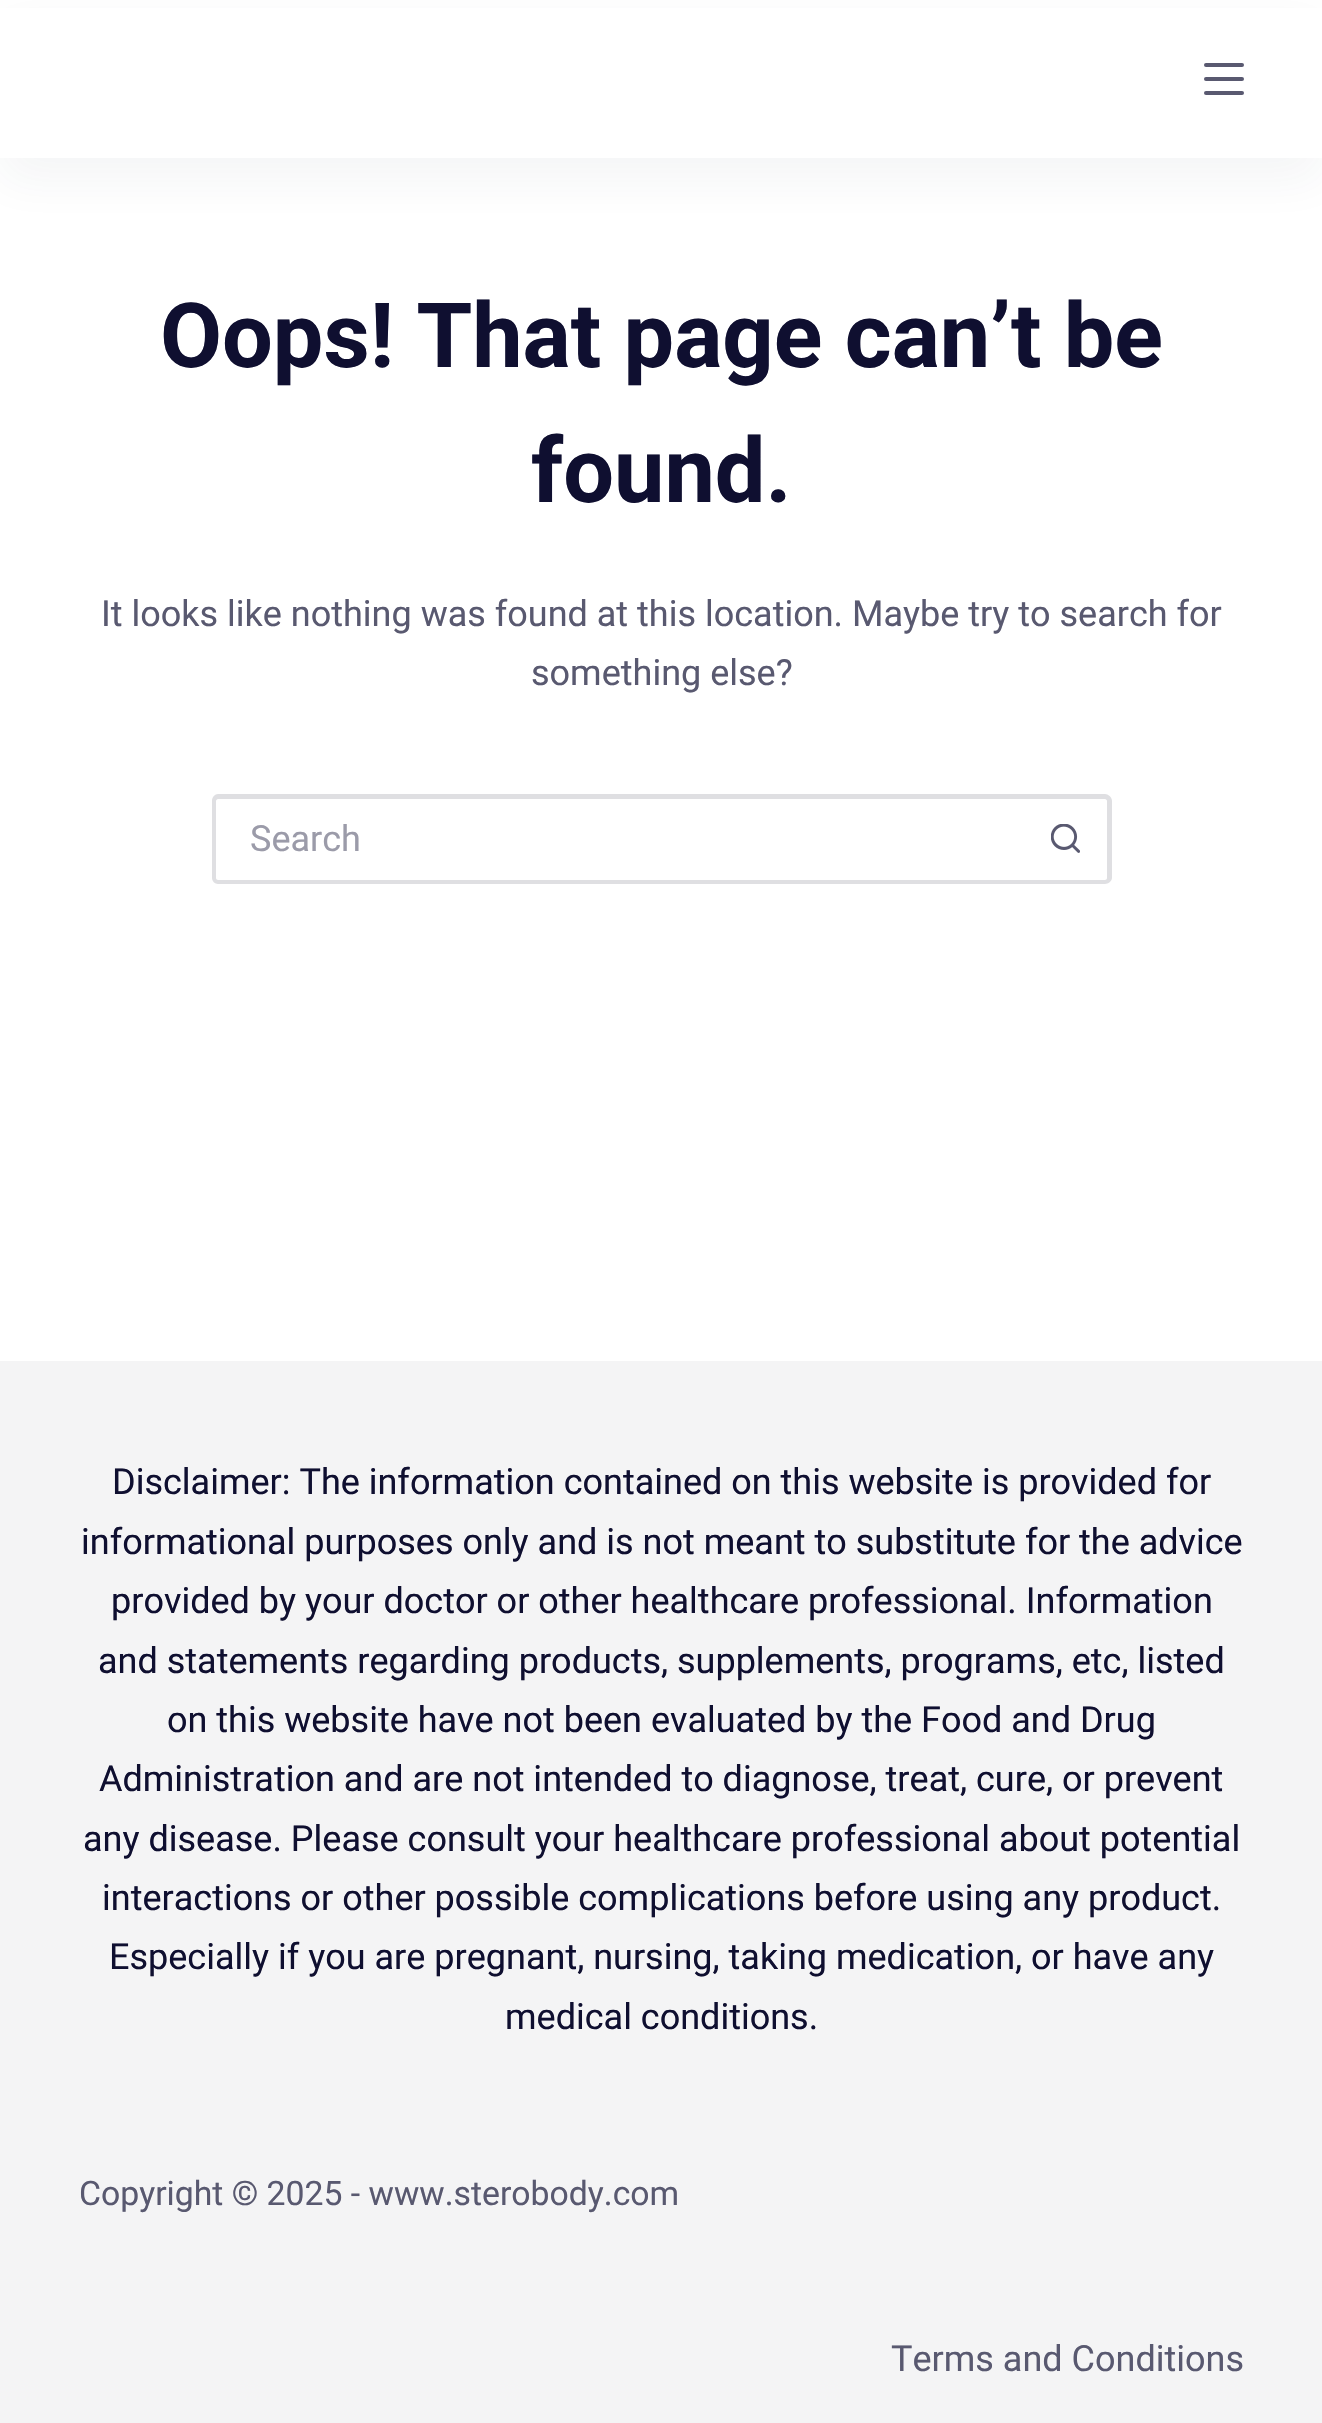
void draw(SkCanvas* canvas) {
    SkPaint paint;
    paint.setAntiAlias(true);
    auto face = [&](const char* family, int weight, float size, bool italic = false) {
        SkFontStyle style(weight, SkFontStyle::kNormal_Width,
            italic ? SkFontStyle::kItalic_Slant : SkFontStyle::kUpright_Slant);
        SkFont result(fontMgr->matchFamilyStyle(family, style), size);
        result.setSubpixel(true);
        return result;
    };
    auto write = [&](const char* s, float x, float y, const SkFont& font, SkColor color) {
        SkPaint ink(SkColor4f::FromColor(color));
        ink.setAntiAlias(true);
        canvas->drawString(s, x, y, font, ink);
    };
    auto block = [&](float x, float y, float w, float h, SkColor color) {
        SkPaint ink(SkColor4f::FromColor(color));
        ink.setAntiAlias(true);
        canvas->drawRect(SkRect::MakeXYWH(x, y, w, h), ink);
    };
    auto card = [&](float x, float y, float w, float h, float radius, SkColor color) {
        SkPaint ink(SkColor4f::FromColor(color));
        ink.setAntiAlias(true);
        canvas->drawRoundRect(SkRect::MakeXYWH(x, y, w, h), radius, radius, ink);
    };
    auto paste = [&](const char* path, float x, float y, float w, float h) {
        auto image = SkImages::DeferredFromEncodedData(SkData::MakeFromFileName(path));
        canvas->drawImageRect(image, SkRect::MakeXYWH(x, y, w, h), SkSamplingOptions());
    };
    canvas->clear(SK_ColorWHITE);
    paint.setColor(SkColorSetARGB(13, 44, 62, 80));
    paint.setMaskFilter(SkMaskFilter::MakeBlur(kNormal_SkBlurStyle, 22.5f));
    canvas->drawRect(SkRect::MakeXYWH(0, 23, 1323, 157), paint);
    paint.setMaskFilter(nullptr);
    block(0, 8, 1322, 150, SK_ColorWHITE);
    card(1204, 63, 40, 4, 2, SkColorSetRGB(89, 89, 112));
    card(1204, 77, 40, 4, 2, SkColorSetRGB(89, 89, 112));
    card(1204, 91, 40, 4, 2, SkColorSetRGB(89, 89, 112));
    auto kFont1 = face("Roboto", 700, 90);
    write("Oops! That page can’t be", 160, 367, kFont1, SkColorSetRGB(15, 15, 48));
    write("found.", 531, 502, kFont1, SkColorSetRGB(15, 15, 48));
    auto kFont2 = face("Roboto", 400, 36);
    write("It looks like nothing was found at this location. Maybe try to search for", 101, 626, kFont2, SkColorSetRGB(89, 89, 112));
    write("something else?", 531, 685, kFont2, SkColorSetRGB(89, 89, 112));
    paint.setColor(SkColorSetRGB(223, 223, 226));
    canvas->drawPath(SkPathBuilder(SkPathFillType::kEvenOdd).moveTo(218, 794).lineTo(1022, 794).lineTo(1022, 884).lineTo(218, 884).cubicTo(215, 884, 212, 881, 212, 878).lineTo(212, 801).cubicTo(212, 797, 215, 794, 218, 794).close().moveTo(218, 799).lineTo(1022, 799).lineTo(1022, 880).lineTo(218, 880).cubicTo(217, 880, 216, 879, 216, 878).lineTo(216, 801).cubicTo(216, 800, 217, 799, 218, 799).close().detach(), paint);
    write("Search", 250, 851, kFont2, SkColorSetRGB(155, 155, 169));
    canvas->drawPath(SkPathBuilder(SkPathFillType::kEvenOdd).moveTo(1022, 794).lineTo(1105, 794).cubicTo(1108, 794, 1112, 797, 1112, 801).lineTo(1112, 878).cubicTo(1112, 881, 1108, 884, 1105, 884).lineTo(1022, 884).close().moveTo(1022, 799).lineTo(1105, 799).cubicTo(1106, 799, 1107, 800, 1107, 801).lineTo(1107, 878).cubicTo(1107, 879, 1106, 880, 1105, 880).lineTo(1022, 880).close().detach(), paint);
    paste("pic1.png", 1051, 824, 29, 29);
    block(0, 1361, 1322, 1062, SkColorSetRGB(244, 244, 245));
    write("Disclaimer: The information contained on this website is provided for", 112, 1494, kFont2, SkColorSetRGB(15, 15, 48));
    write("informational purposes only and is not meant to substitute for the advice", 81, 1554, kFont2, SkColorSetRGB(15, 15, 48));
    write("provided by your doctor or other healthcare professional. Information", 111, 1613, kFont2, SkColorSetRGB(15, 15, 48));
    write("and statements regarding products, supplements, programs, etc, listed", 98, 1673, kFont2, SkColorSetRGB(15, 15, 48));
    write("on this website have not been evaluated by the Food and Drug", 167, 1732, kFont2, SkColorSetRGB(15, 15, 48));
    write("Administration and are not intended to diagnose, treat, cure, or prevent", 99, 1791, kFont2, SkColorSetRGB(15, 15, 48));
    write("any disease. Please consult your healthcare professional about potential", 83, 1851, kFont2, SkColorSetRGB(15, 15, 48));
    write("interactions or other possible complications before using any product.", 102, 1910, kFont2, SkColorSetRGB(15, 15, 48));
    write("Especially if you are pregnant, nursing, taking medication, or have any", 109, 1969, kFont2, SkColorSetRGB(15, 15, 48));
    write("medical conditions.", 505, 2029, kFont2, SkColorSetRGB(15, 15, 48));
    auto kFont3 = face("Roboto", 400, 33.75f);
    write("Copyright © 2025 - www.sterobody.com", 79, 2205, kFont3, SkColorSetRGB(89, 89, 112));
    write("Terms and Conditions", 891, 2371, kFont2, SkColorSetRGB(89, 89, 112));
}
